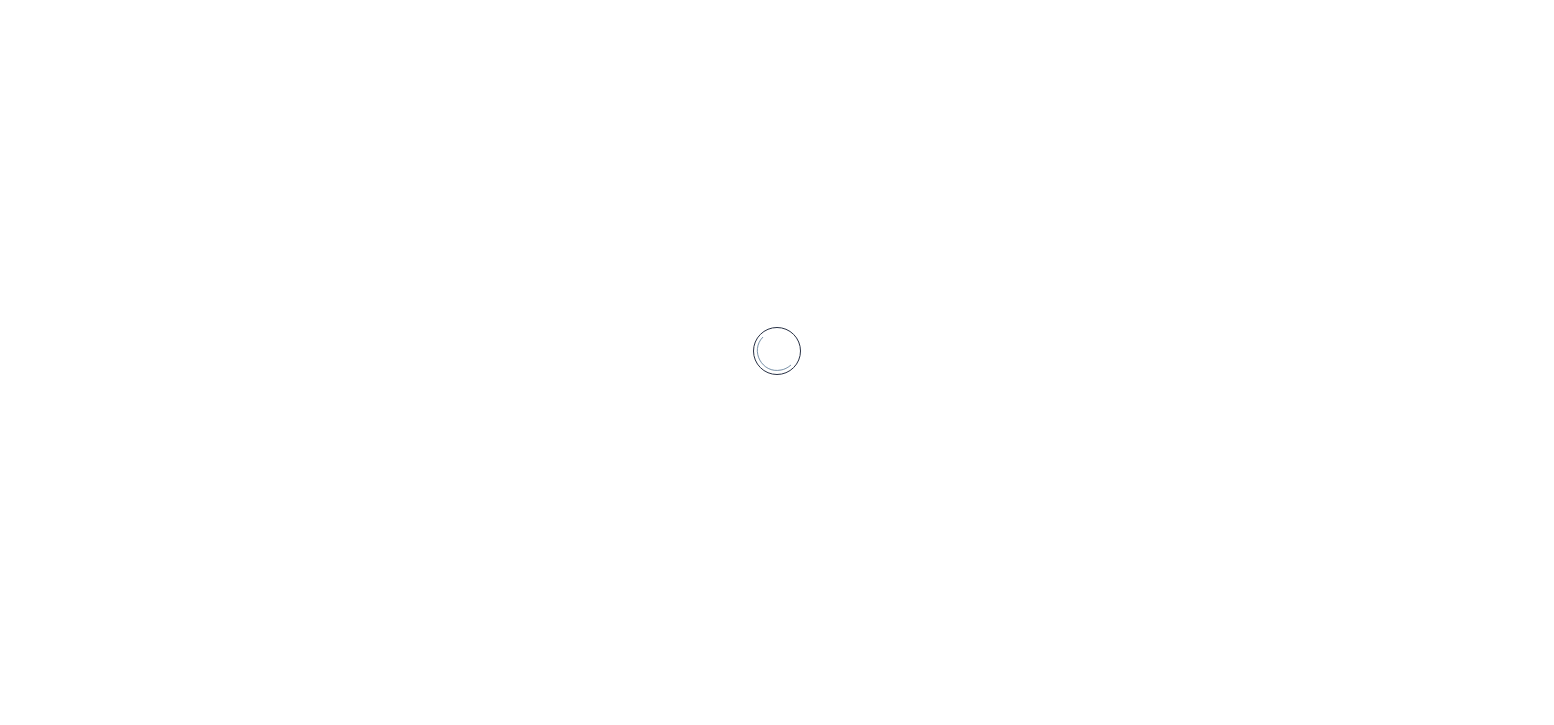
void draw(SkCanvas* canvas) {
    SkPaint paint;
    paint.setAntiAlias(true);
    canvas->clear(SK_ColorWHITE);
    paint.setStyle(SkPaint::kStroke_Style);
    paint.setStrokeWidth(1);
    paint.setColor(SkColorSetRGB(39, 48, 68));
    canvas->drawCircle(777, 351, 23.5f, paint);
    paint.setColor(SkColorSetRGB(181, 194, 207));
    canvas->drawPath(SkPathBuilder().moveTo(791, 365).cubicTo(788, 367.5f, 784.5f, 369.5f, 781, 370).cubicTo(762, 374, 749.5f, 350.5f, 763, 337).detach(), paint);
    paint.setColor(SkColorSetARGB(74, 0, 46, 91));
    canvas->drawPath(SkPathBuilder().moveTo(791, 365).cubicTo(788, 367.5f, 784.5f, 369.5f, 781, 370).cubicTo(762, 374, 749.5f, 350.5f, 763, 337).detach(), paint);
}
